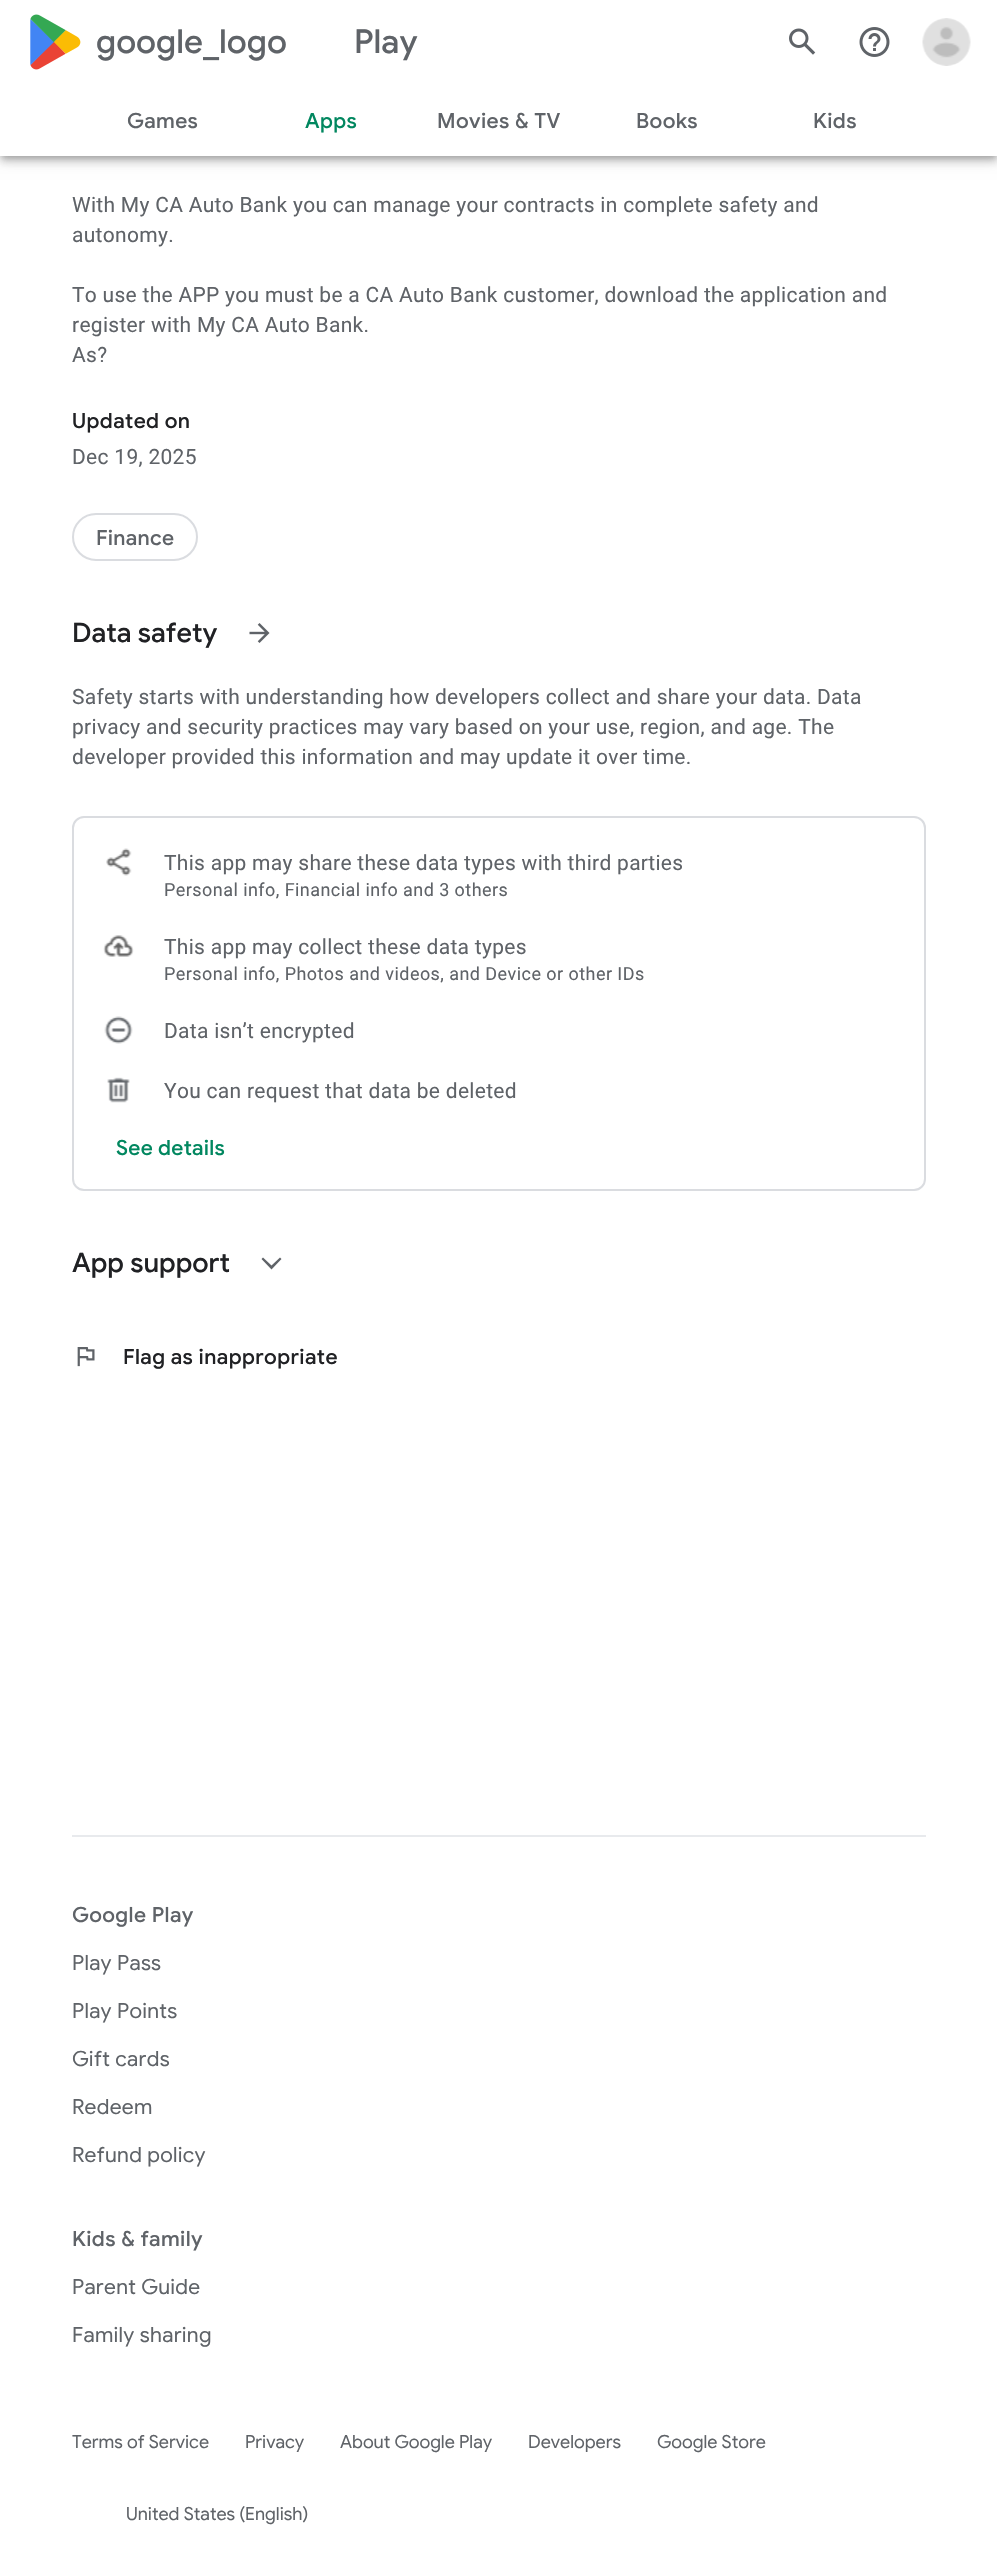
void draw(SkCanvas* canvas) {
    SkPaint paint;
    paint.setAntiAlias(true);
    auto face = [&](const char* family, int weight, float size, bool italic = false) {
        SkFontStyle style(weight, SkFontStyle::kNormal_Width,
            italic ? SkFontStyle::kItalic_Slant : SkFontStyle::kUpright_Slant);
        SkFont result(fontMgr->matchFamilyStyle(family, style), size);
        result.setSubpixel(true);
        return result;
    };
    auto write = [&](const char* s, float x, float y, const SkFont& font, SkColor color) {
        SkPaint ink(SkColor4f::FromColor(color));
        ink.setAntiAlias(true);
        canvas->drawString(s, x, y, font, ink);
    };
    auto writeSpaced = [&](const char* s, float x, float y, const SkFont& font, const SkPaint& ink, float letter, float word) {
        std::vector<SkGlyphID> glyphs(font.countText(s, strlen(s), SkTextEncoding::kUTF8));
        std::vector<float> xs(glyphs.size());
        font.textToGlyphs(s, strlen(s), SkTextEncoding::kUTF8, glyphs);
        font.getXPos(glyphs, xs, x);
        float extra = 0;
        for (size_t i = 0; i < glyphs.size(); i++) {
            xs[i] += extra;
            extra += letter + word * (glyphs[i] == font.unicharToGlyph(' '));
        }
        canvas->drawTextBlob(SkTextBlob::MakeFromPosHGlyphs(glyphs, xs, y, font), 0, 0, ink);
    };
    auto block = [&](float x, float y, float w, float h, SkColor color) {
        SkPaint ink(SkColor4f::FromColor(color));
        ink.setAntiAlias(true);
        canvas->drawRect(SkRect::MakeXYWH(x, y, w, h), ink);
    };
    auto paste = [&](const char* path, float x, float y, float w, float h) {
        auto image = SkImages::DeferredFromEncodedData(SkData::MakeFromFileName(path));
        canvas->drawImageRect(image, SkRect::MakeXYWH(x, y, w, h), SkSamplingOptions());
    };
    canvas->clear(SK_ColorWHITE);
    paint.setColor(SkColorSetARGB(51, 0, 0, 0));
    paint.setMaskFilter(SkMaskFilter::MakeBlur(kNormal_SkBlurStyle, 3));
    canvas->drawRect(SkRect::MakeXYWH(2, 5, 994, 153), paint);
    paint.setMaskFilter(nullptr);
    paint.setColor(SkColorSetARGB(31, 0, 0, 0));
    paint.setMaskFilter(SkMaskFilter::MakeBlur(kNormal_SkBlurStyle, 7.5f));
    canvas->drawRect(SkRect::MakeXYWH(0, 2, 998, 156), paint);
    paint.setMaskFilter(nullptr);
    paint.setColor(SkColorSetARGB(36, 0, 0, 0));
    paint.setMaskFilter(SkMaskFilter::MakeBlur(kNormal_SkBlurStyle, 4));
    canvas->drawRect(SkRect::MakeXYWH(0, 6, 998, 156), paint);
    paint.setMaskFilter(nullptr);
    block(0, 0, 997, 156, SK_ColorWHITE);
    paste("pic1.png", 30, 14, 51, 56);
    auto kFont1 = face("Google Sans", 500, 33);
    paint.setColor(SkColorSetRGB(95, 99, 104));
    writeSpaced("google_logo", 96, 53, kFont1, paint, 0, 82);
    writeSpaced("Play", 354, 53, kFont1, paint, 0, 82);
    paste("pic2.png", 789, 28, 27, 27);
    paste("pic3.png", 859, 27, 31, 30);
    paste("pic4.png", 922, 18, 49, 48);
    auto kFont2 = face("Google Sans", 500, 21);
    writeSpaced("Games", 127, 128, kFont2, paint, 0.4f, 0);
    paint.setColor(SkColorSetRGB(1, 135, 95));
    writeSpaced("Apps", 305, 128, kFont2, paint, 0.4f, 0);
    paint.setColor(SkColorSetRGB(95, 99, 104));
    writeSpaced("Movies & TV", 437, 128, kFont2, paint, 0.4f, 0);
    writeSpaced("Books", 636, 128, kFont2, paint, 0.4f, 0);
    writeSpaced("Kids", 813, 128, kFont2, paint, 0.4f, 0);
    auto kFont3 = face("Roboto", 400, 21);
    writeSpaced("With My CA Auto Bank you can manage your contracts in complete safety and", 72, 212, kFont3, paint, 0.3f, 0);
    writeSpaced("autonomy.", 72, 242, kFont3, paint, 0.3f, 0);
    writeSpaced("To use the APP you must be a CA Auto Bank customer, download the application and", 72, 302, kFont3, paint, 0.3f, 0);
    writeSpaced("register with My CA Auto Bank.", 72, 332, kFont3, paint, 0.3f, 0);
    writeSpaced("As?", 72, 362, kFont3, paint, 0.3f, 0);
    paint.setColor(SkColorSetRGB(32, 33, 36));
    writeSpaced("Updated on", 72, 428, kFont2, paint, 0.4f, 0);
    paint.setColor(SkColorSetRGB(95, 99, 104));
    writeSpaced("Dec 19, 2025", 72, 464, kFont3, paint, 0.3f, 0);
    paint.setStyle(SkPaint::kStroke_Style);
    paint.setStrokeWidth(2);
    paint.setColor(SkColorSetRGB(218, 220, 224));
    canvas->drawRoundRect(SkRect::MakeXYWH(73, 514, 124, 46), 23, 23, paint);
    paint.setStyle(SkPaint::kFill_Style);
    paint.setColor(SkColorSetRGB(95, 99, 104));
    writeSpaced("Finance", 96, 545, kFont2, paint, 0.25f, 0);
    auto kFont4 = face("Google Sans", 500, 27);
    write("Data safety", 72, 642, kFont4, SkColorSetRGB(32, 33, 36));
    paste("pic5.png", 249, 623, 21, 20);
    writeSpaced("Safety starts with understanding how developers collect and share your data. Data", 72, 704, kFont3, paint, 0.3f, 0);
    writeSpaced("privacy and security practices may vary based on your use, region, and age. The", 72, 734, kFont3, paint, 0.3f, 0);
    writeSpaced("developer provided this information and may update it over time.", 72, 764, kFont3, paint, 0.3f, 0);
    paint.setStyle(SkPaint::kStroke_Style);
    paint.setColor(SkColorSetRGB(218, 220, 224));
    canvas->drawRoundRect(SkRect::MakeXYWH(73, 817, 852, 373), 11, 11, paint);
    paste("pic6.png", 106, 848, 26, 28);
    paint.setStyle(SkPaint::kFill_Style);
    paint.setColor(SkColorSetRGB(95, 99, 104));
    writeSpaced("This app may share these data types with third parties", 164, 870, kFont3, paint, 0.3f, 0);
    auto kFont5 = face("Roboto", 400, 18);
    writeSpaced("Personal info, Financial info and 3 others", 164, 896, kFont5, paint, 0.45f, 0);
    paste("pic7.png", 103, 935, 31, 22);
    writeSpaced("This app may collect these data types", 164, 954, kFont3, paint, 0.3f, 0);
    writeSpaced("Personal info, Photos and videos, and Device or other IDs", 164, 980, kFont5, paint, 0.45f, 0);
    paste("pic8.png", 104, 1016, 29, 28);
    writeSpaced("Data isn’t encrypted", 164, 1038, kFont3, paint, 0.3f, 0);
    paste("pic9.png", 107, 1077, 23, 26);
    writeSpaced("You can request that data be deleted", 164, 1098, kFont3, paint, 0.3f, 0);
    paint.setColor(SkColorSetRGB(1, 135, 95));
    writeSpaced("See details", 116, 1155, kFont2, paint, 0.25f, 0);
    write("App support", 72, 1272, kFont4, SkColorSetRGB(32, 33, 36));
    paint.setColor(SkColorSetRGB(95, 99, 104));
    canvas->drawPath(SkPathBuilder().moveTo(263, 1257.5f).lineTo(261.5f, 1259).lineTo(271.5f, 1269.5f).lineTo(281.5f, 1259).lineTo(280, 1257.5f).lineTo(271.5f, 1265.5f).close().detach(), paint);
    paste("pic10.png", 77, 1347, 18, 20);
    paint.setColor(SkColorSetRGB(32, 33, 36));
    writeSpaced("Flag as inappropriate", 123, 1364, kFont2, paint, 0.4f, 0);
    block(72, 1835, 854, 2, SkColorSetRGB(232, 234, 237));
    paint.setColor(SkColorSetRGB(95, 99, 104));
    writeSpaced("Google Play", 72, 1922, kFont2, paint, 0.4f, 0);
    auto kFont6 = face("Google Sans", 400, 21);
    writeSpaced("Play Pass", 72, 1970, kFont6, paint, 0.3f, 0);
    writeSpaced("Play Points", 72, 2018, kFont6, paint, 0.3f, 0);
    writeSpaced("Gift cards", 72, 2066, kFont6, paint, 0.3f, 0);
    writeSpaced("Redeem", 72, 2114, kFont6, paint, 0.3f, 0);
    writeSpaced("Refund policy", 72, 2162, kFont6, paint, 0.3f, 0);
    writeSpaced("Kids & family", 72, 2246, kFont2, paint, 0.4f, 0);
    writeSpaced("Parent Guide", 72, 2294, kFont6, paint, 0.3f, 0);
    writeSpaced("Family sharing", 72, 2342, kFont6, paint, 0.3f, 0);
    auto kFont7 = face("Google Sans", 400, 18);
    write("Terms of Service", 72, 2448, kFont7, SkColorSetRGB(95, 99, 104));
    write("Privacy", 245, 2448, kFont7, SkColorSetRGB(95, 99, 104));
    write("About Google Play", 340, 2448, kFont7, SkColorSetRGB(95, 99, 104));
    write("Developers", 528, 2448, kFont7, SkColorSetRGB(95, 99, 104));
    write("Google Store", 657, 2448, kFont7, SkColorSetRGB(95, 99, 104));
    write("United States (English)", 126, 2520, kFont7, SkColorSetRGB(95, 99, 104));
}
